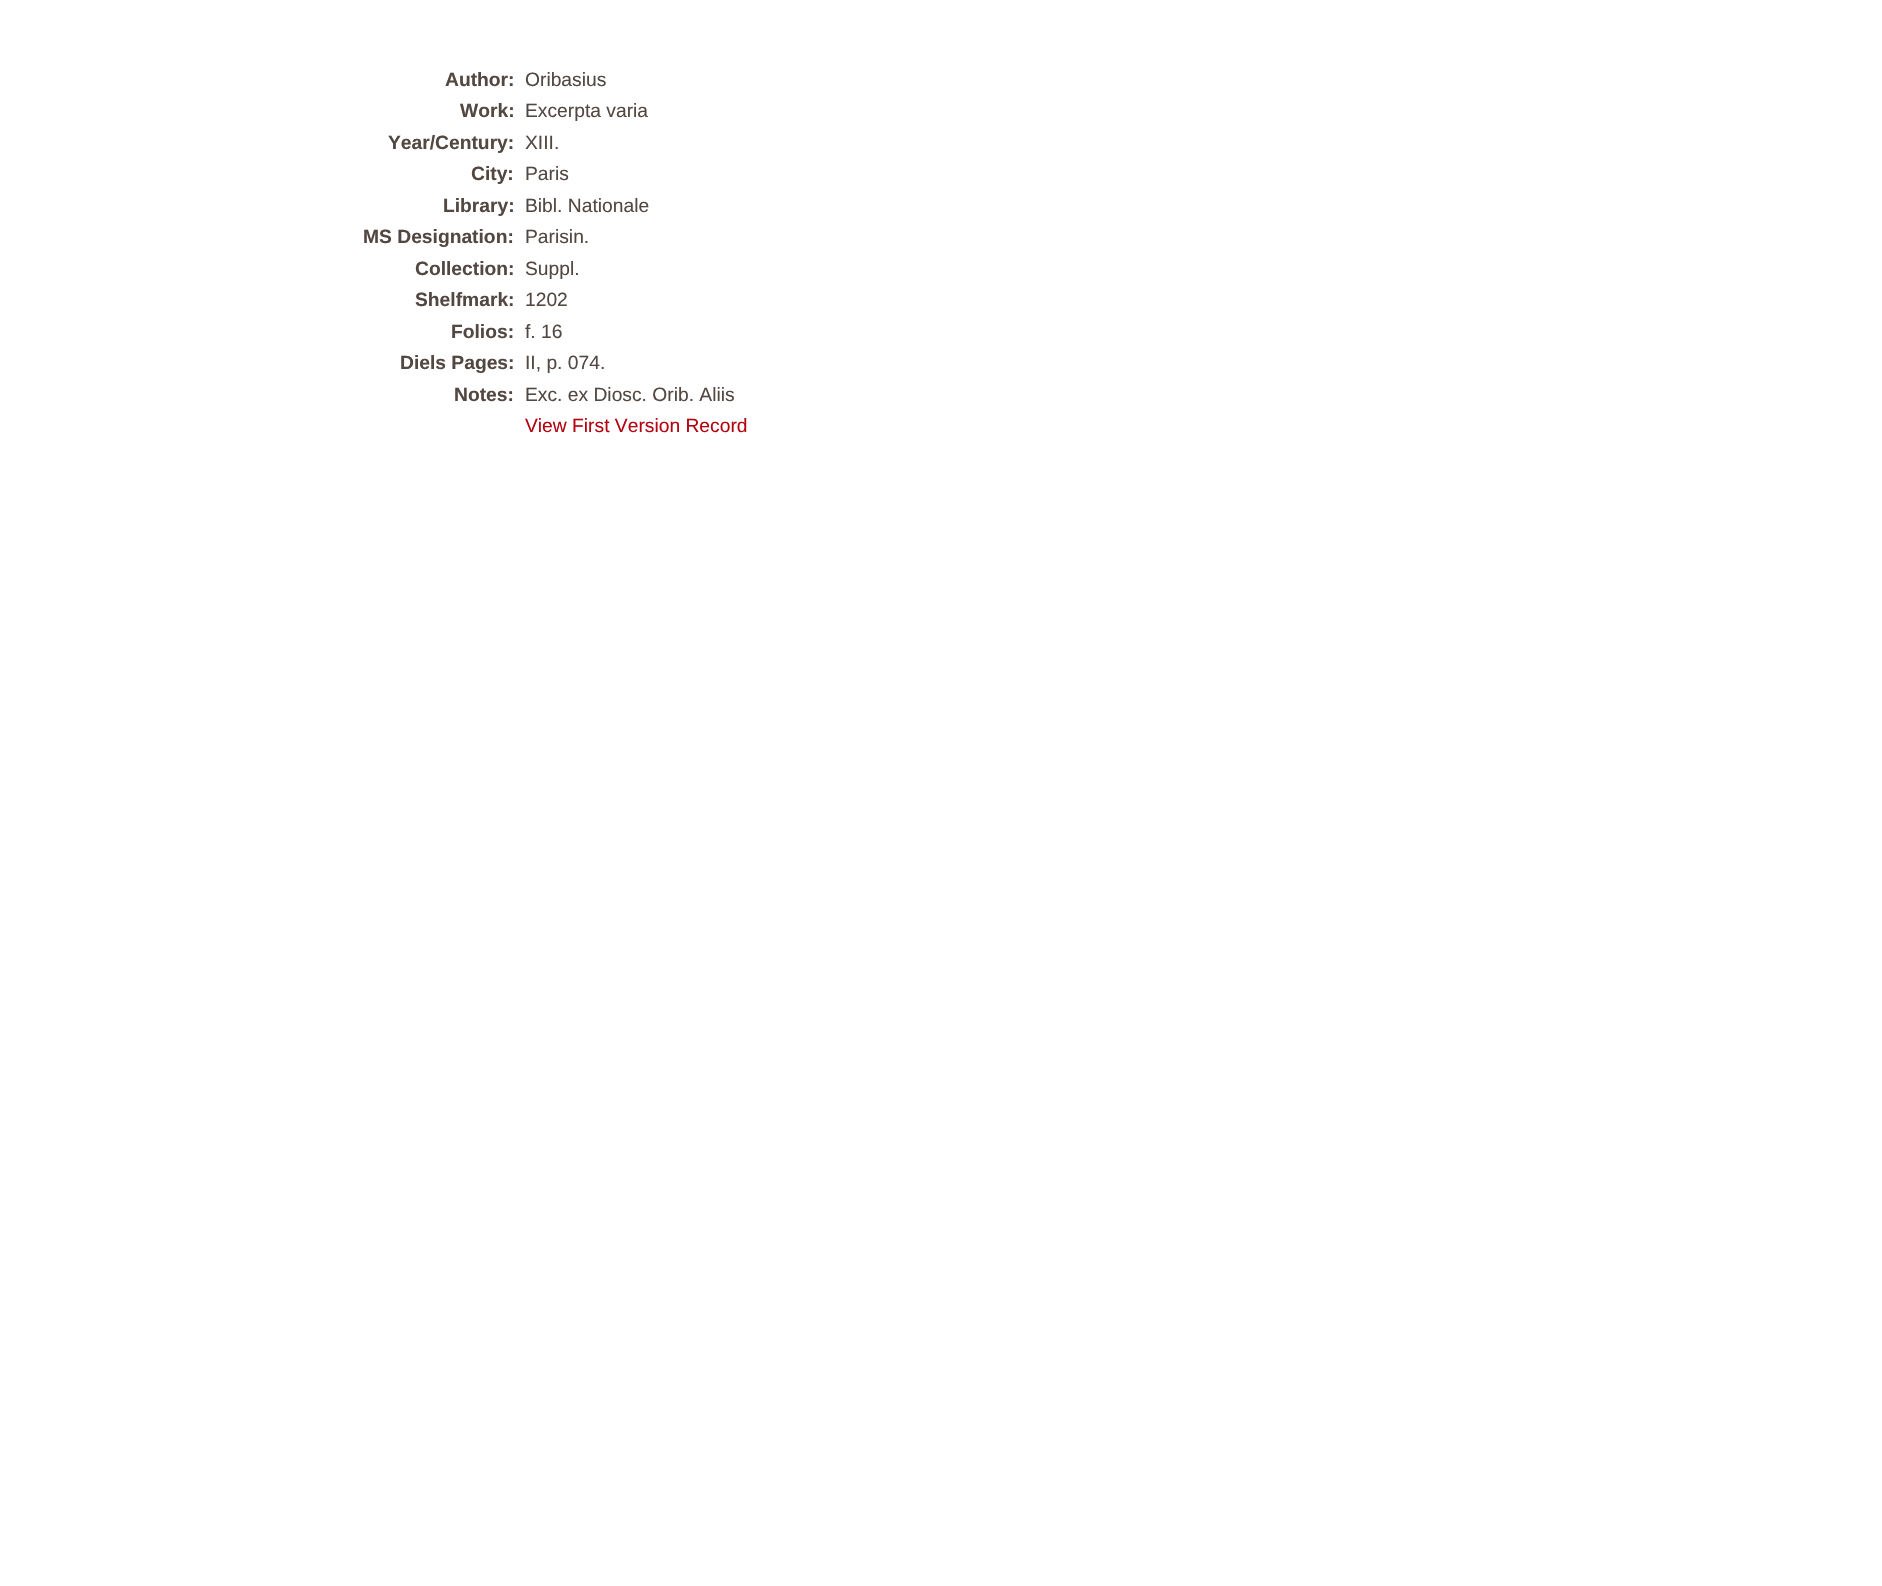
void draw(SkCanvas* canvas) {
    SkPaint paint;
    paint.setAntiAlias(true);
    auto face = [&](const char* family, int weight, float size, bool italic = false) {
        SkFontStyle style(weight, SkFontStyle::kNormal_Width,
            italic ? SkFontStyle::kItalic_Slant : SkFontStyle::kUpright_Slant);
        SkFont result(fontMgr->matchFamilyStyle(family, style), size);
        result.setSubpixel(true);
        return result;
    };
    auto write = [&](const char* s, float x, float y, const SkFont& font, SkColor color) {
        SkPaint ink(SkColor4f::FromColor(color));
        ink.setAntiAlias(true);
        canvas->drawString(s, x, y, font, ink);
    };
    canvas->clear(SK_ColorWHITE);
    auto kFont1 = face("Liberation Sans", 700, 19.25f);
    write("Author:", 445, 86, kFont1, SkColorSetRGB(83, 71, 65));
    auto kFont2 = face("Liberation Sans", 400, 19.25f);
    write("Oribasius", 525, 86, kFont2, SkColorSetRGB(83, 71, 65));
    write("Work:", 460, 117, kFont1, SkColorSetRGB(83, 71, 65));
    write("Excerpta varia", 525, 117, kFont2, SkColorSetRGB(83, 71, 65));
    write("Year/Century:", 388, 149, kFont1, SkColorSetRGB(83, 71, 65));
    write("XIII.", 525, 149, kFont2, SkColorSetRGB(83, 71, 65));
    write("City:", 471, 180, kFont1, SkColorSetRGB(83, 71, 65));
    write("Paris", 525, 180, kFont2, SkColorSetRGB(83, 71, 65));
    write("Library:", 443, 212, kFont1, SkColorSetRGB(83, 71, 65));
    write("Bibl. Nationale", 525, 212, kFont2, SkColorSetRGB(83, 71, 65));
    write("MS Designation:", 363, 243, kFont1, SkColorSetRGB(83, 71, 65));
    write("Parisin.", 525, 243, kFont2, SkColorSetRGB(83, 71, 65));
    write("Collection:", 415, 275, kFont1, SkColorSetRGB(83, 71, 65));
    write("Suppl.", 525, 275, kFont2, SkColorSetRGB(83, 71, 65));
    write("Shelfmark:", 415, 306, kFont1, SkColorSetRGB(83, 71, 65));
    write("1202", 525, 306, kFont2, SkColorSetRGB(83, 71, 65));
    write("Folios:", 451, 338, kFont1, SkColorSetRGB(83, 71, 65));
    write("f. 16", 525, 338, kFont2, SkColorSetRGB(83, 71, 65));
    write("Diels Pages:", 400, 369, kFont1, SkColorSetRGB(83, 71, 65));
    write("II, p. 074.", 525, 369, kFont2, SkColorSetRGB(83, 71, 65));
    write("Notes:", 454, 401, kFont1, SkColorSetRGB(83, 71, 65));
    write("Exc. ex Diosc. Orib. Aliis", 525, 401, kFont2, SkColorSetRGB(83, 71, 65));
    write("View First Version Record", 525, 432, kFont2, SkColorSetRGB(179, 4, 16));
}
